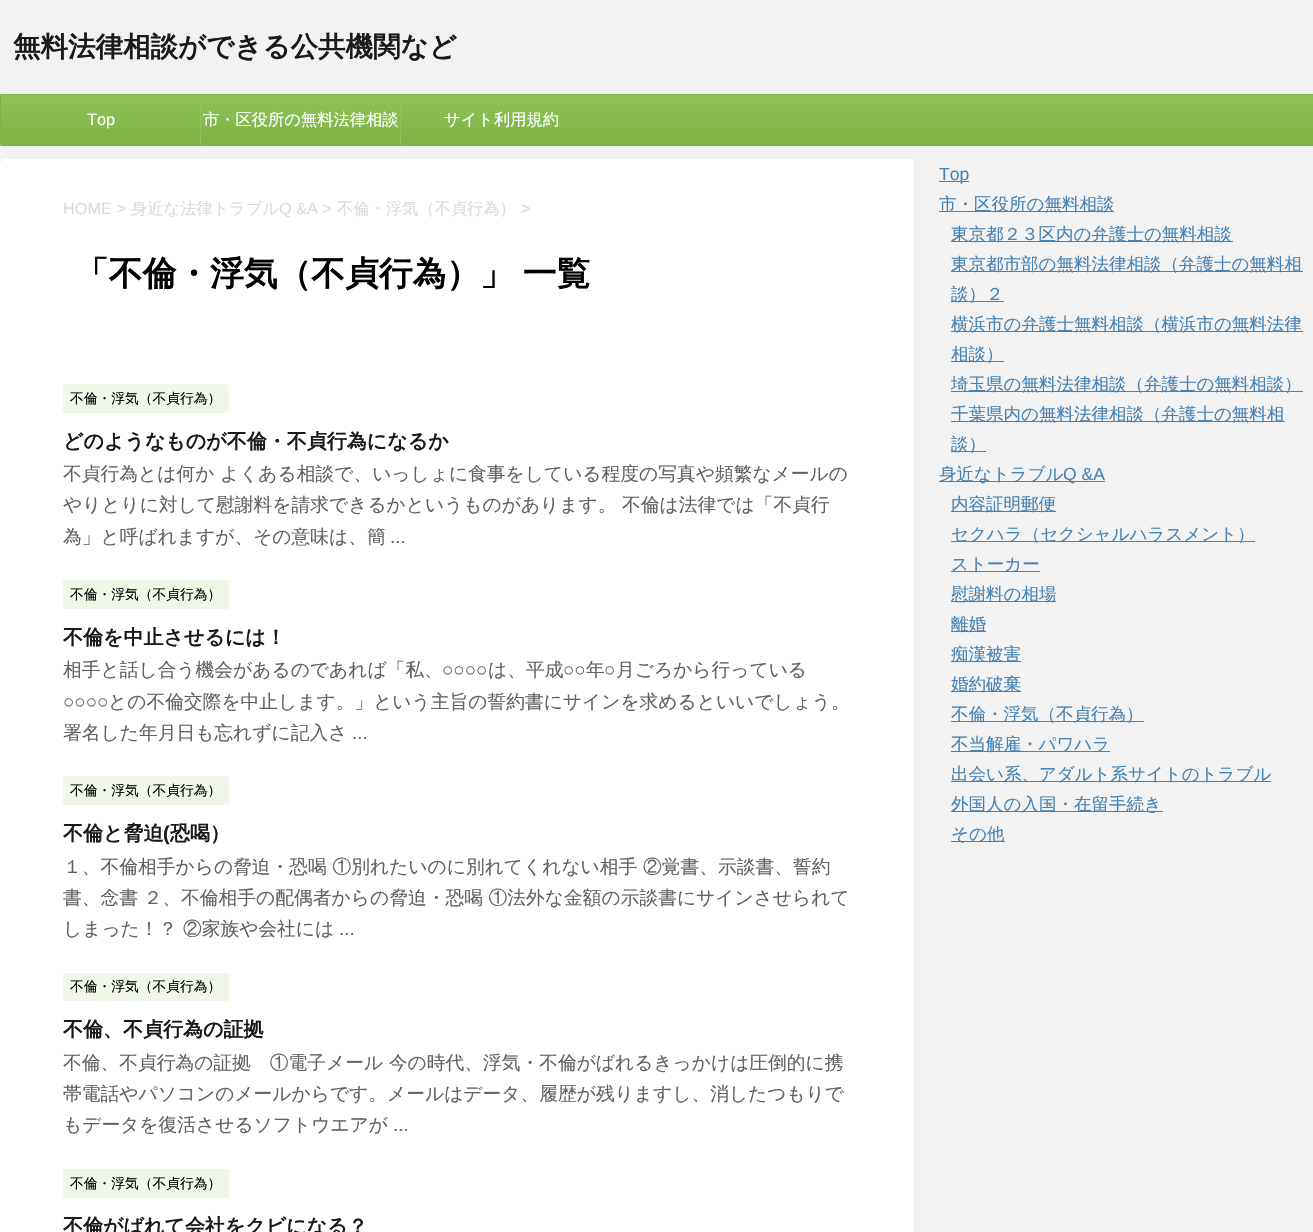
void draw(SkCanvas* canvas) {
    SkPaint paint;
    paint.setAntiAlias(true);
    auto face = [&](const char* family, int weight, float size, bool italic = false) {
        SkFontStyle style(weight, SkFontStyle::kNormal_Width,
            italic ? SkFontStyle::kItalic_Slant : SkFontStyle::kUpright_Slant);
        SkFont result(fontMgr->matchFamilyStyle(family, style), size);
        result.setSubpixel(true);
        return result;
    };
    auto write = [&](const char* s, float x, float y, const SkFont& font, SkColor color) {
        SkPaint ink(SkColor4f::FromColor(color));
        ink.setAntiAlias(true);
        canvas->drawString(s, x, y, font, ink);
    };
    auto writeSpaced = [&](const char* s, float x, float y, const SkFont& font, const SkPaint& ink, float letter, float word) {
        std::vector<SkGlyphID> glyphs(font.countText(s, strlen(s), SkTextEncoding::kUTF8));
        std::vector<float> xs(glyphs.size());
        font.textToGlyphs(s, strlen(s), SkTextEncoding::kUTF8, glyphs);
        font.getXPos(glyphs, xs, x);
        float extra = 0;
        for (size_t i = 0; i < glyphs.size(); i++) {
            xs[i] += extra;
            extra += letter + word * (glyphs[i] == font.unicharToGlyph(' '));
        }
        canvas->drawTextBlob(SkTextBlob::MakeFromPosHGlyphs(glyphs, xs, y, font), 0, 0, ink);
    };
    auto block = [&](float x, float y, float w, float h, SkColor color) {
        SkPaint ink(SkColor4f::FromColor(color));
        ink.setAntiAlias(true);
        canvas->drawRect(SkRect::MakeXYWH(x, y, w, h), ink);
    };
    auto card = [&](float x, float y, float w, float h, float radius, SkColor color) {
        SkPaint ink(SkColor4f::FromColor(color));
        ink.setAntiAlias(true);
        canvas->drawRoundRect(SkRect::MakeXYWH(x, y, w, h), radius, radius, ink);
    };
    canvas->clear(SkColorSetRGB(242, 242, 242));
    auto kFont1 = face("WenQuanYi Zen Hei", 700, 27.5f);
    write("無料法律相談ができる公共機関など", 13, 56, kFont1, SkColorSetRGB(26, 26, 26));
    {
        const SkColor colors[] = {SkColorSetRGB(143, 194, 90), SkColorSetRGB(124, 179, 66)};
        const float stops[] = {0, 1};
        const SkPoint ends[] = {{657, 95}, {657, 145}};
        paint.setShader(SkGradientShader::MakeLinear(ends, colors, stops, 2, SkTileMode::kClamp));
        paint.setAlpha(255);
    }
    canvas->drawRect(SkRect::MakeXYWH(1, 95, 1312, 50), paint);
    paint.setStyle(SkPaint::kStroke_Style);
    paint.setStrokeWidth(1);
    paint.setShader(nullptr);
    paint.setColor(SkColorSetRGB(124, 179, 66));
    canvas->drawRoundRect(SkRect::MakeXYWH(0.5f, 94.5f, 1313, 51), 0.5f, 0.5f, paint);
    block(200, 95, 1, 50, SkColorSetRGB(143, 194, 90));
    auto kFont2 = face("Liberation Sans", 400, 16.25f);
    write("Top", 87, 125, kFont2, SK_ColorWHITE);
    block(400, 95, 1, 50, SkColorSetRGB(143, 194, 90));
    auto kFont3 = face("WenQuanYi Zen Hei", 500, 16.25f);
    write("市・区役所の無料法律相談", 203, 125, kFont3, SK_ColorWHITE);
    write("サイト利用規約", 444, 125, kFont3, SK_ColorWHITE);
    card(0, 159, 914, 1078, 5, SK_ColorWHITE);
    write("HOME >", 63, 214, kFont2, SkColorSetRGB(219, 219, 219));
    write("身近な法律トラブル", 131, 214, kFont3, SkColorSetRGB(219, 219, 219));
    write("Q &A >", 279, 214, kFont2, SkColorSetRGB(219, 219, 219));
    write("不倫・浮気（不貞行為）", 337, 214, kFont3, SkColorSetRGB(219, 219, 219));
    write(">", 521, 214, kFont2, SkColorSetRGB(219, 219, 219));
    auto kFont4 = face("WenQuanYi Zen Hei", 700, 33.75f);
    paint.setStyle(SkPaint::kFill_Style);
    paint.setColor(SK_ColorBLACK);
    writeSpaced("「不倫・浮気（不貞行為）」 一覧", 75, 285, kFont4, paint, 0, -1);
    card(63, 384, 166, 29, 2.5f, SkColorSetRGB(240, 247, 233));
    auto kFont5 = face("WenQuanYi Zen Hei", 500, 13.75f);
    write("不倫・浮気（不貞行為）", 70, 403, kFont5, SK_ColorBLACK);
    auto kFont6 = face("WenQuanYi Zen Hei", 700, 20);
    write("どのようなものが不倫・不貞行為になるか", 63, 448, kFont6, SkColorSetRGB(26, 26, 26));
    auto kFont7 = face("WenQuanYi Zen Hei", 500, 18.75f);
    write("不貞行為とは何か よくある相談で、いっしょに食事をしている程度の写真や頻繁なメールの", 63, 480, kFont7, SkColorSetRGB(97, 97, 97));
    write("やりとりに対して慰謝料を請求できるかというものがあります。 不倫は法律では「不貞行", 63, 511, kFont7, SkColorSetRGB(97, 97, 97));
    write("為」と呼ばれますが、その意味は、簡", 63, 543, kFont7, SkColorSetRGB(97, 97, 97));
    auto kFont8 = face("Liberation Sans", 400, 18.75f);
    write("...", 390, 543, kFont8, SkColorSetRGB(97, 97, 97));
    card(63, 580, 166, 29, 2.5f, SkColorSetRGB(240, 247, 233));
    write("不倫・浮気（不貞行為）", 70, 599, kFont5, SK_ColorBLACK);
    write("不倫を中止させるには！", 63, 644, kFont6, SkColorSetRGB(26, 26, 26));
    write("相手と話し合う機会があるのであれば「私、", 63, 676, kFont7, SkColorSetRGB(97, 97, 97));
    write("○○○○", 442, 676, kFont8, SkColorSetRGB(97, 97, 97));
    write("は、平成", 488, 676, kFont7, SkColorSetRGB(97, 97, 97));
    write("○○", 563, 676, kFont8, SkColorSetRGB(97, 97, 97));
    write("年", 586, 676, kFont7, SkColorSetRGB(97, 97, 97));
    write("○", 604, 676, kFont8, SkColorSetRGB(97, 97, 97));
    write("月ごろから行っている", 616, 676, kFont7, SkColorSetRGB(97, 97, 97));
    write("○○○○", 63, 708, kFont8, SkColorSetRGB(97, 97, 97));
    write("との不倫交際を中止します。」という主旨の誓約書にサインを求めるといいでしょう。", 108, 708, kFont7, SkColorSetRGB(97, 97, 97));
    write("署名した年月日も忘れずに記入さ", 63, 739, kFont7, SkColorSetRGB(97, 97, 97));
    write("...", 352, 739, kFont8, SkColorSetRGB(97, 97, 97));
    card(63, 776, 166, 29, 2.5f, SkColorSetRGB(240, 247, 233));
    write("不倫・浮気（不貞行為）", 70, 795, kFont5, SK_ColorBLACK);
    write("不倫と脅迫", 63, 840, kFont6, SkColorSetRGB(26, 26, 26));
    auto kFont9 = face("Liberation Sans", 700, 20);
    write("(", 163, 840, kFont9, SkColorSetRGB(26, 26, 26));
    write("恐喝）", 170, 840, kFont6, SkColorSetRGB(26, 26, 26));
    write("１、不倫相手からの脅迫・恐喝 ①別れたいのに別れてくれない相手 ②覚書、示談書、誓約", 63, 873, kFont7, SkColorSetRGB(97, 97, 97));
    write("書、念書 ２、不倫相手の配偶者からの脅迫・恐喝 ①法外な金額の示談書にサインさせられて", 63, 904, kFont7, SkColorSetRGB(97, 97, 97));
    write("しまった！？ ②家族や会社には", 63, 935, kFont7, SkColorSetRGB(97, 97, 97));
    write("...", 339, 935, kFont8, SkColorSetRGB(97, 97, 97));
    card(63, 973, 166, 28, 2.5f, SkColorSetRGB(240, 247, 233));
    write("不倫・浮気（不貞行為）", 70, 991, kFont5, SK_ColorBLACK);
    write("不倫、不貞行為の証拠", 63, 1036, kFont6, SkColorSetRGB(26, 26, 26));
    write("不倫、不貞行為の証拠　①電子メール 今の時代、浮気・不倫がばれるきっかけは圧倒的に携", 63, 1069, kFont7, SkColorSetRGB(97, 97, 97));
    write("帯電話やパソコンのメールからです。メールはデータ、履歴が残りますし、消したつもりで", 63, 1100, kFont7, SkColorSetRGB(97, 97, 97));
    write("もデータを復活させるソフトウエアが", 63, 1131, kFont7, SkColorSetRGB(97, 97, 97));
    write("...", 393, 1131, kFont8, SkColorSetRGB(97, 97, 97));
    card(63, 1169, 166, 29, 2.5f, SkColorSetRGB(240, 247, 233));
    write("不倫・浮気（不貞行為）", 70, 1188, kFont5, SK_ColorBLACK);
    write("不倫がばれて会社をクビになる？", 63, 1233, kFont6, SkColorSetRGB(26, 26, 26));
    block(939, 181, 30, 1, SkColorSetRGB(70, 130, 180));
    auto kFont10 = face("Liberation Sans", 400, 17.5f);
    write("Top", 939, 180, kFont10, SkColorSetRGB(70, 130, 180));
    block(939, 211, 175, 1, SkColorSetRGB(70, 130, 180));
    auto kFont11 = face("WenQuanYi Zen Hei", 500, 17.5f);
    write("市・区役所の無料相談", 939, 210, kFont11, SkColorSetRGB(70, 130, 180));
    block(951, 241, 282, 1, SkColorSetRGB(70, 130, 180));
    write("東京都２３区内の弁護士の無料相談", 951, 240, kFont11, SkColorSetRGB(70, 130, 180));
    block(951, 271, 352, 1, SkColorSetRGB(70, 130, 180));
    write("東京都市部の無料法律相談（弁護士の無料相", 951, 270, kFont11, SkColorSetRGB(70, 130, 180));
    block(951, 301, 53, 1, SkColorSetRGB(70, 130, 180));
    write("談）２", 951, 300, kFont11, SkColorSetRGB(70, 130, 180));
    block(951, 331, 352, 1, SkColorSetRGB(70, 130, 180));
    write("横浜市の弁護士無料相談（横浜市の無料法律", 951, 330, kFont11, SkColorSetRGB(70, 130, 180));
    block(951, 361, 53, 1, SkColorSetRGB(70, 130, 180));
    write("相談）", 951, 360, kFont11, SkColorSetRGB(70, 130, 180));
    block(951, 391, 352, 1, SkColorSetRGB(70, 130, 180));
    write("埼玉県の無料法律相談（弁護士の無料相談）", 951, 390, kFont11, SkColorSetRGB(70, 130, 180));
    block(951, 421, 334, 1, SkColorSetRGB(70, 130, 180));
    write("千葉県内の無料法律相談（弁護士の無料相", 951, 420, kFont11, SkColorSetRGB(70, 130, 180));
    block(951, 451, 35, 1, SkColorSetRGB(70, 130, 180));
    write("談）", 951, 450, kFont11, SkColorSetRGB(70, 130, 180));
    block(939, 481, 166, 1, SkColorSetRGB(70, 130, 180));
    write("身近なトラブル", 939, 480, kFont11, SkColorSetRGB(70, 130, 180));
    write("Q &A", 1063, 480, kFont10, SkColorSetRGB(70, 130, 180));
    block(951, 511, 105, 1, SkColorSetRGB(70, 130, 180));
    write("内容証明郵便", 951, 510, kFont11, SkColorSetRGB(70, 130, 180));
    block(951, 541, 304, 1, SkColorSetRGB(70, 130, 180));
    write("セクハラ（セクシャルハラスメント）", 951, 540, kFont11, SkColorSetRGB(70, 130, 180));
    block(951, 571, 89, 1, SkColorSetRGB(70, 130, 180));
    write("ストーカー", 951, 570, kFont11, SkColorSetRGB(70, 130, 180));
    block(951, 601, 105, 1, SkColorSetRGB(70, 130, 180));
    write("慰謝料の相場", 951, 600, kFont11, SkColorSetRGB(70, 130, 180));
    block(951, 631, 35, 1, SkColorSetRGB(70, 130, 180));
    write("離婚", 951, 630, kFont11, SkColorSetRGB(70, 130, 180));
    block(951, 661, 70, 1, SkColorSetRGB(70, 130, 180));
    write("痴漢被害", 951, 660, kFont11, SkColorSetRGB(70, 130, 180));
    block(951, 691, 70, 1, SkColorSetRGB(70, 130, 180));
    write("婚約破棄", 951, 690, kFont11, SkColorSetRGB(70, 130, 180));
    block(951, 721, 193, 1, SkColorSetRGB(70, 130, 180));
    write("不倫・浮気（不貞行為）", 951, 720, kFont11, SkColorSetRGB(70, 130, 180));
    block(951, 751, 159, 1, SkColorSetRGB(70, 130, 180));
    write("不当解雇・パワハラ", 951, 750, kFont11, SkColorSetRGB(70, 130, 180));
    block(951, 781, 320, 1, SkColorSetRGB(70, 130, 180));
    write("出会い系、アダルト系サイトのトラブル", 951, 780, kFont11, SkColorSetRGB(70, 130, 180));
    block(951, 811, 212, 1, SkColorSetRGB(70, 130, 180));
    write("外国人の入国・在留手続き", 951, 810, kFont11, SkColorSetRGB(70, 130, 180));
    block(951, 841, 54, 1, SkColorSetRGB(70, 130, 180));
    write("その他", 951, 840, kFont11, SkColorSetRGB(70, 130, 180));
}
